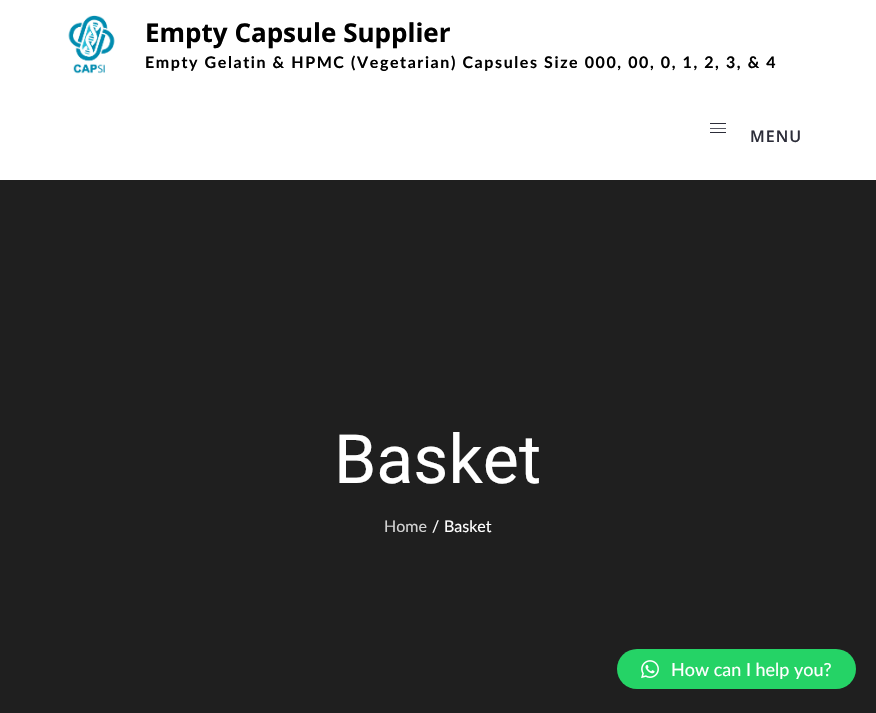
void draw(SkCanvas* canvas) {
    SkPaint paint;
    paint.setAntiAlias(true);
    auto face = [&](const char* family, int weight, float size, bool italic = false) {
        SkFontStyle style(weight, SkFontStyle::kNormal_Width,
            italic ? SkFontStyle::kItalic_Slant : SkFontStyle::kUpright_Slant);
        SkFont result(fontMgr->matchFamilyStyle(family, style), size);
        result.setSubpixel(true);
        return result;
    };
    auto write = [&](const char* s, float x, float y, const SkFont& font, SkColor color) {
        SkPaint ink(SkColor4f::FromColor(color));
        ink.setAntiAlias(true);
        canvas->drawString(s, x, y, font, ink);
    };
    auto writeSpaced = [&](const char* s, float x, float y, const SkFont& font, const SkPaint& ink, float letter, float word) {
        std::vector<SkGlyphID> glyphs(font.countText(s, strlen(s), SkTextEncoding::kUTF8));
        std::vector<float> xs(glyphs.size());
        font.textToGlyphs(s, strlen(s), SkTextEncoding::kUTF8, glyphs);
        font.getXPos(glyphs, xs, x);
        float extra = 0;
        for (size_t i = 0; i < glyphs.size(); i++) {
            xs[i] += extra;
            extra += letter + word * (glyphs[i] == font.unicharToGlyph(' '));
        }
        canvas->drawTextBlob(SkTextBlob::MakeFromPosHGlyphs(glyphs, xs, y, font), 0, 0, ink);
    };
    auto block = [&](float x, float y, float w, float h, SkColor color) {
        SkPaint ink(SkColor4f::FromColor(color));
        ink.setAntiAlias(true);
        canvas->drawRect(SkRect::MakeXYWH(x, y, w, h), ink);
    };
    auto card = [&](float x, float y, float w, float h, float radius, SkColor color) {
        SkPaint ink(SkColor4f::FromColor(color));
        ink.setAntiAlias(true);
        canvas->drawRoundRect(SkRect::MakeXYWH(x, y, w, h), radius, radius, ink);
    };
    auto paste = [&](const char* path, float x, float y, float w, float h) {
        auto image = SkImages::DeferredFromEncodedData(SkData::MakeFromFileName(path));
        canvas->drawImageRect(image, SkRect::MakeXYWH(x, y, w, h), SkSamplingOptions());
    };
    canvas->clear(SK_ColorWHITE);
    paste("pic1.png", 68, 15, 47, 59);
    auto kFont1 = face("Open Sans", 700, 26);
    write("Empty Capsule Supplier", 145, 42, kFont1, SK_ColorBLACK);
    auto kFont2 = face("Lato", 700, 16);
    paint.setColor(SK_ColorBLACK);
    writeSpaced("Empty Gelatin & HPMC (Vegetarian) Capsules Size 000, 00, 0, 1, 2, 3, & 4", 145, 68, kFont2, paint, 1.6f, 0);
    block(710, 123, 16, 1, SkColorSetRGB(44, 45, 57));
    block(710, 128, 16, 1, SkColorSetRGB(86, 87, 97));
    block(710, 132, 16, 1, SkColorSetRGB(44, 45, 57));
    auto kFont3 = face("Open Sans", 600, 16);
    paint.setColor(SkColorSetRGB(44, 45, 57));
    writeSpaced("MENU", 750, 142, kFont3, paint, 1, 0);
    block(0, 180, 876, 533, SkColorSetRGB(31, 31, 31));
    auto kFont4 = face("Roboto", 400, 68);
    write("Basket", 334, 483, kFont4, SK_ColorWHITE);
    auto kFont5 = face("Lato", 400, 16);
    write("Home", 384, 532, kFont5, SkColorSetRGB(210, 210, 210));
    write("/", 432, 532, kFont5, SK_ColorWHITE);
    write("Basket", 444, 532, kFont5, SK_ColorWHITE);
    card(617, 649, 239, 40, 20, SkColorSetRGB(37, 211, 102));
    paste("pic2.png", 641, 660, 18, 19);
    auto kFont6 = face("Lato", 400, 18);
    write("How can I help you?", 671, 676, kFont6, SK_ColorWHITE);
}
